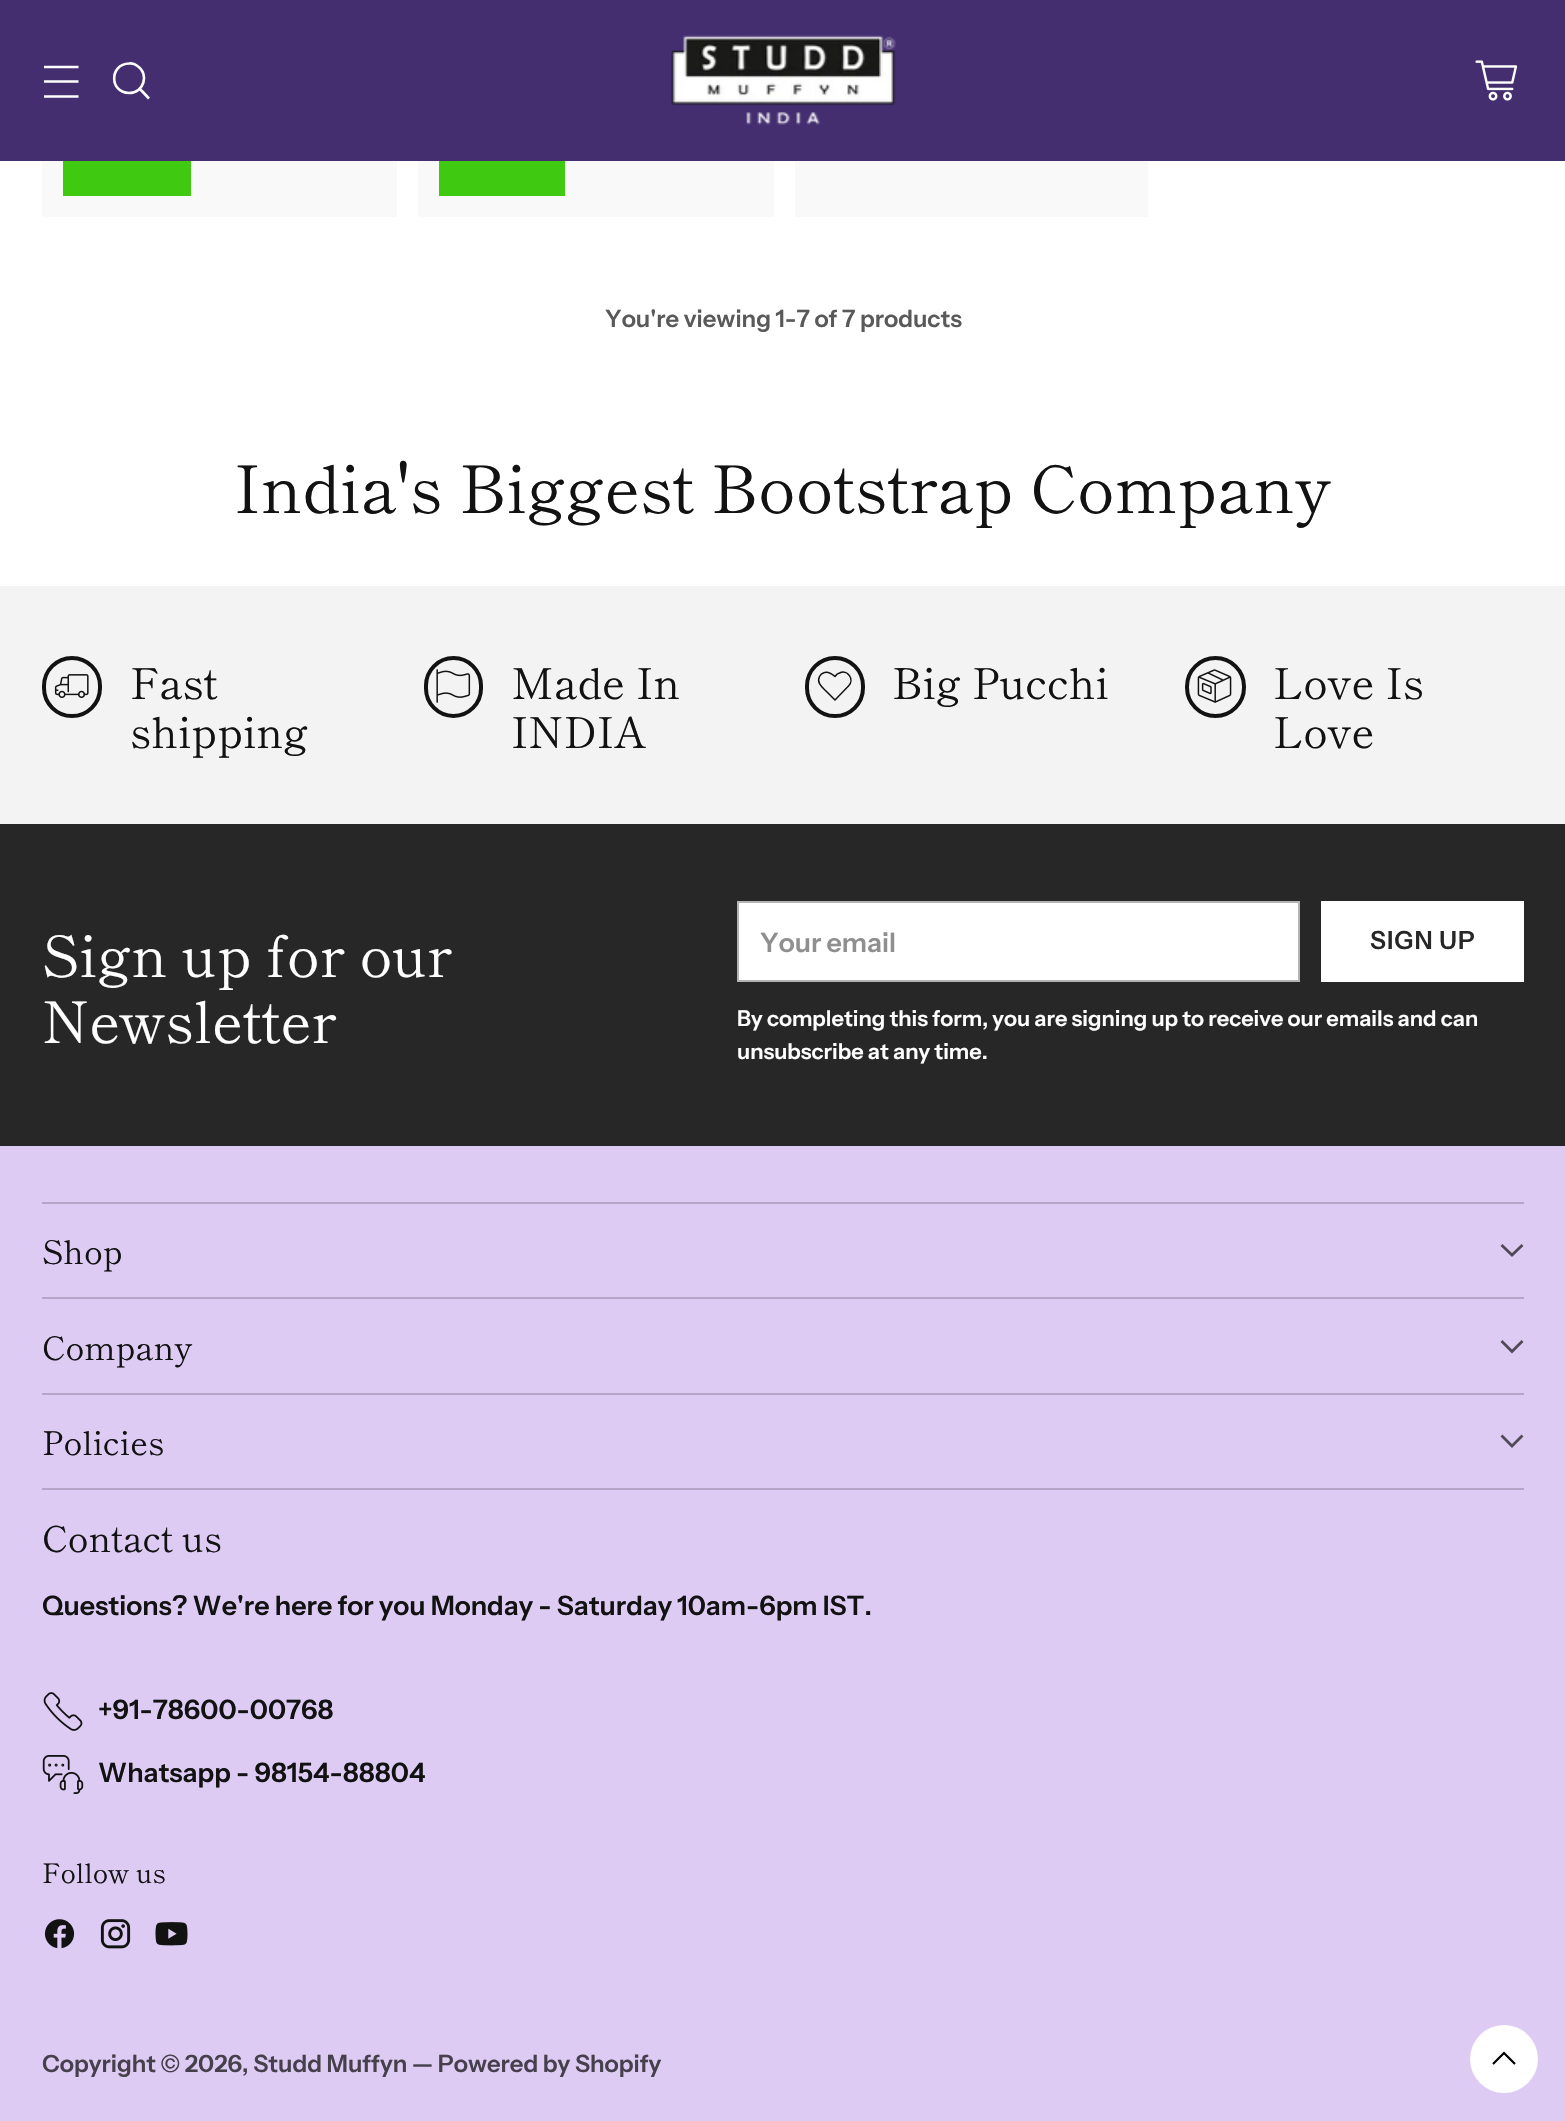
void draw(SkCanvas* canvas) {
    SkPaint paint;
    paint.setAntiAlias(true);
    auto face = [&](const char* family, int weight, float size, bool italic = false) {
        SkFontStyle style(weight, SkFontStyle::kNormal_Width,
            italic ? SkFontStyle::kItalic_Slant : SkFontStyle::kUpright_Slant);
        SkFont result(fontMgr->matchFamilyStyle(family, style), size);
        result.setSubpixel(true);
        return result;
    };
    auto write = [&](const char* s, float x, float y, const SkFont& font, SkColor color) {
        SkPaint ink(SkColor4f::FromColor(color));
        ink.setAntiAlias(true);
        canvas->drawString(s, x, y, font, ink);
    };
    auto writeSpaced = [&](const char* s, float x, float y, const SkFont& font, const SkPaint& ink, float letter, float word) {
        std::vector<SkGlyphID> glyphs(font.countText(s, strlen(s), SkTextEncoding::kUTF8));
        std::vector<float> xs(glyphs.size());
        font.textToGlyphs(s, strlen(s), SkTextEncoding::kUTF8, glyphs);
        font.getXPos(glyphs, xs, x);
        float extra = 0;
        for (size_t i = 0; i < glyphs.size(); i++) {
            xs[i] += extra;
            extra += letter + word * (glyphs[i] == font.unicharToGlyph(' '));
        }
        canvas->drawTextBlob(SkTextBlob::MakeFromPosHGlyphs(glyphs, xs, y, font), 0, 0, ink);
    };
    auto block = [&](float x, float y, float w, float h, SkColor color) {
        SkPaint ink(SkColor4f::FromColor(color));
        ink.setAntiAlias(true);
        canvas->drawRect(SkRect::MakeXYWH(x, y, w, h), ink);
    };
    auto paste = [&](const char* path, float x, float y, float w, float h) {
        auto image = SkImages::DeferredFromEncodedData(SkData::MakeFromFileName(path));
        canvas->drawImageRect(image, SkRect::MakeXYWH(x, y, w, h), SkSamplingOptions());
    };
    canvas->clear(SK_ColorWHITE);
    block(0, 0, 1565, 161, SkColorSetRGB(68, 46, 112));
    paint.setStyle(SkPaint::kStroke_Style);
    paint.setStrokeWidth(2.5f);
    paint.setColor(SK_ColorWHITE);
    canvas->drawPath(SkPathBuilder().moveTo(44, 81.5f).lineTo(78.5f, 81.5f).moveTo(44, 67).lineTo(78.5f, 67).moveTo(44, 96.5f).lineTo(78.5f, 96.5f).detach(), paint);
    paint.setStrokeWidth(2.6f);
    paint.setStrokeCap(SkPaint::kRound_Cap);
    canvas->drawPath(SkPathBuilder().moveTo(129, 93).cubicTo(144, 93, 149.5f, 74, 137.5f, 66).cubicTo(135, 64, 132, 63, 129, 63.5f).cubicTo(109, 64, 109.5f, 93, 129, 93).close().detach(), paint);
    paint.setStrokeCap(SkPaint::kButt_Cap);
    canvas->drawPath(SkPathBuilder().moveTo(140, 89).lineTo(149, 98.5f).detach(), paint);
    paste("pic1.png", 671, 35, 225, 90);
    paste("pic2.png", 1475, 60, 43, 41);
    block(42, 161, 355, 56, SkColorSetRGB(249, 249, 249));
    block(63, 161, 128, 35, SkColorSetRGB(63, 201, 16));
    block(418, 161, 356, 56, SkColorSetRGB(249, 249, 249));
    block(439, 161, 126, 35, SkColorSetRGB(63, 201, 16));
    block(795, 161, 353, 56, SkColorSetRGB(249, 249, 249));
    auto kFont1 = face("Instrument Sans", 600, 23.8f);
    write("You're viewing 1-7 of 7 products", 605, 327, kFont1, SkColorSetRGB(89, 89, 89));
    auto kFont2 = face("Shippori Mincho", 400, 65.5f);
    write("India's Biggest Bootstrap Company", 234, 513, kFont2, SkColorSetRGB(18, 18, 18));
    block(0, 586, 1565, 238, SkColorSetRGB(243, 243, 243));
    paint.setStrokeWidth(4);
    paint.setColor(SkColorSetRGB(18, 18, 18));
    canvas->drawRoundRect(SkRect::MakeXYWH(44, 658, 56, 58), 28, 28, paint);
    paste("pic3.png", 54, 674, 35, 24);
    auto kFont3 = face("Shippori Mincho", 400, 42.5f);
    write("Fast", 130, 699, kFont3, SkColorSetRGB(18, 18, 18));
    write("shipping", 130, 748, kFont3, SkColorSetRGB(18, 18, 18));
    canvas->drawRoundRect(SkRect::MakeXYWH(426, 658, 55, 58), 27.5f, 27.5f, paint);
    paste("pic4.png", 436, 669, 35, 34);
    write("Made In", 511, 699, kFont3, SkColorSetRGB(18, 18, 18));
    write("INDIA", 511, 748, kFont3, SkColorSetRGB(18, 18, 18));
    canvas->drawRoundRect(SkRect::MakeXYWH(807, 658, 56, 58), 28, 28, paint);
    paint.setStrokeWidth(1.5f);
    paint.setStrokeCap(SkPaint::kRound_Cap);
    paint.setStrokeJoin(SkPaint::kRound_Join);
    canvas->drawPath(SkPathBuilder().moveTo(835, 700).lineTo(825.5f, 690.5f).cubicTo(821.5f, 686.5f, 816.5f, 682.5f, 819.5f, 676.5f).cubicTo(820.5f, 674.5f, 822.5f, 673, 824.5f, 672.5f).cubicTo(829, 671, 832, 674, 835, 676.5f).cubicTo(836, 675, 837.5f, 673.5f, 839.5f, 673).cubicTo(847.5f, 669, 855, 679.5f, 848.5f, 686).close().detach(), paint);
    write("Big Pucchi", 892, 699, kFont3, SkColorSetRGB(18, 18, 18));
    paint.setStrokeWidth(4);
    paint.setStrokeCap(SkPaint::kButt_Cap);
    paint.setStrokeJoin(SkPaint::kMiter_Join);
    canvas->drawRoundRect(SkRect::MakeXYWH(1187, 658, 57, 58), 28.5f, 28.5f, paint);
    paste("pic5.png", 1197, 669, 35, 34);
    write("Love Is", 1273, 699, kFont3, SkColorSetRGB(18, 18, 18));
    write("Love", 1273, 748, kFont3, SkColorSetRGB(18, 18, 18));
    block(0, 824, 1565, 322, SkColorSetRGB(39, 39, 39));
    auto kFont4 = face("Shippori Mincho", 400, 57.25f);
    write("Sign up for our", 42, 977, kFont4, SK_ColorWHITE);
    write("Newsletter", 42, 1043, kFont4, SK_ColorWHITE);
    paint.setStyle(SkPaint::kFill_Style);
    paint.setColor(SK_ColorWHITE);
    canvas->drawRect(SkRect::MakeXYWH(738, 902, 561, 79), paint);
    paint.setStyle(SkPaint::kStroke_Style);
    paint.setStrokeWidth(2);
    paint.setColor(SkColorSetRGB(180, 180, 180));
    canvas->drawRect(SkRect::MakeXYWH(738, 902, 561, 79), paint);
    auto kFont5 = face("Instrument Sans", 600, 26.8f);
    write("Your email", 760, 952, kFont5, SkColorSetRGB(143, 143, 143));
    block(1321, 901, 203, 81, SK_ColorWHITE);
    auto kFont6 = face("Instrument Sans", 600, 25);
    paint.setStyle(SkPaint::kFill_Style);
    paint.setColor(SkColorSetRGB(39, 39, 39));
    writeSpaced("SIGN UP", 1370, 949, kFont6, paint, 1, 0);
    auto kFont7 = face("Instrument Sans", 600, 21.75f);
    write("By completing this form, you are signing up to receive our emails and can", 737, 1026, kFont7, SK_ColorWHITE);
    write("unsubscribe at any time.", 737, 1059, kFont7, SK_ColorWHITE);
    block(0, 1146, 1565, 975, SkColorSetRGB(222, 203, 244));
    block(42, 1202, 1482, 2, SkColorSetRGB(181, 166, 199));
    block(42, 1297, 1482, 2, SkColorSetRGB(181, 166, 199));
    auto kFont8 = face("Shippori Mincho", 400, 32.75f);
    write("Shop", 42, 1264, kFont8, SkColorSetRGB(18, 18, 18));
    paint.setStyle(SkPaint::kStroke_Style);
    paint.setStrokeWidth(2.8f);
    paint.setColor(SkColorSetRGB(79, 74, 86));
    canvas->drawPath(SkPathBuilder().moveTo(1501.5f, 1245).lineTo(1512, 1255).lineTo(1522.5f, 1245).detach(), paint);
    block(42, 1393, 1482, 2, SkColorSetRGB(181, 166, 199));
    write("Company", 42, 1360, kFont8, SkColorSetRGB(18, 18, 18));
    canvas->drawPath(SkPathBuilder().moveTo(1501.5f, 1341).lineTo(1512, 1351.5f).lineTo(1522.5f, 1341).detach(), paint);
    block(42, 1488, 1482, 2, SkColorSetRGB(181, 166, 199));
    write("Policies", 42, 1455, kFont8, SkColorSetRGB(18, 18, 18));
    canvas->drawPath(SkPathBuilder().moveTo(1501.5f, 1435.5f).lineTo(1512, 1446).lineTo(1522.5f, 1435.5f).detach(), paint);
    auto kFont9 = face("Shippori Mincho", 400, 36);
    write("Contact us", 42, 1552, kFont9, SkColorSetRGB(18, 18, 18));
    write("Questions? We're here for you Monday - Saturday 10am-6pm IST.", 42, 1615, kFont5, SkColorSetRGB(18, 18, 18));
    paste("pic6.png", 43, 1692, 40, 39);
    write("+91-78600-00768", 98, 1719, kFont5, SkColorSetRGB(18, 18, 18));
    paste("pic7.png", 42, 1755, 42, 39);
    write("Whatsapp - 98154-88804", 98, 1782, kFont5, SkColorSetRGB(18, 18, 18));
    auto kFont10 = face("Shippori Mincho", 400, 26.8f);
    write("Follow us", 42, 1883, kFont10, SkColorSetRGB(18, 18, 18));
    paste("pic8.png", 44, 1919, 31, 30);
    paste("pic9.png", 100, 1919, 31, 30);
    paste("pic10.png", 155, 1922, 33, 24);
    write("Copyright © 2026, Studd Muffyn — Powered by Shopify", 42, 2072, kFont1, SkColorSetRGB(69, 64, 75));
    paint.setStyle(SkPaint::kFill_Style);
    paint.setColor(SK_ColorWHITE);
    canvas->drawCircle(1504, 2059, 34, paint);
    paint.setStyle(SkPaint::kStroke_Style);
    paint.setStrokeWidth(2.2f);
    paint.setColor(SK_ColorBLACK);
    canvas->drawPath(SkPathBuilder().moveTo(1515, 2064).lineTo(1504, 2053).lineTo(1493, 2064).detach(), paint);
}
